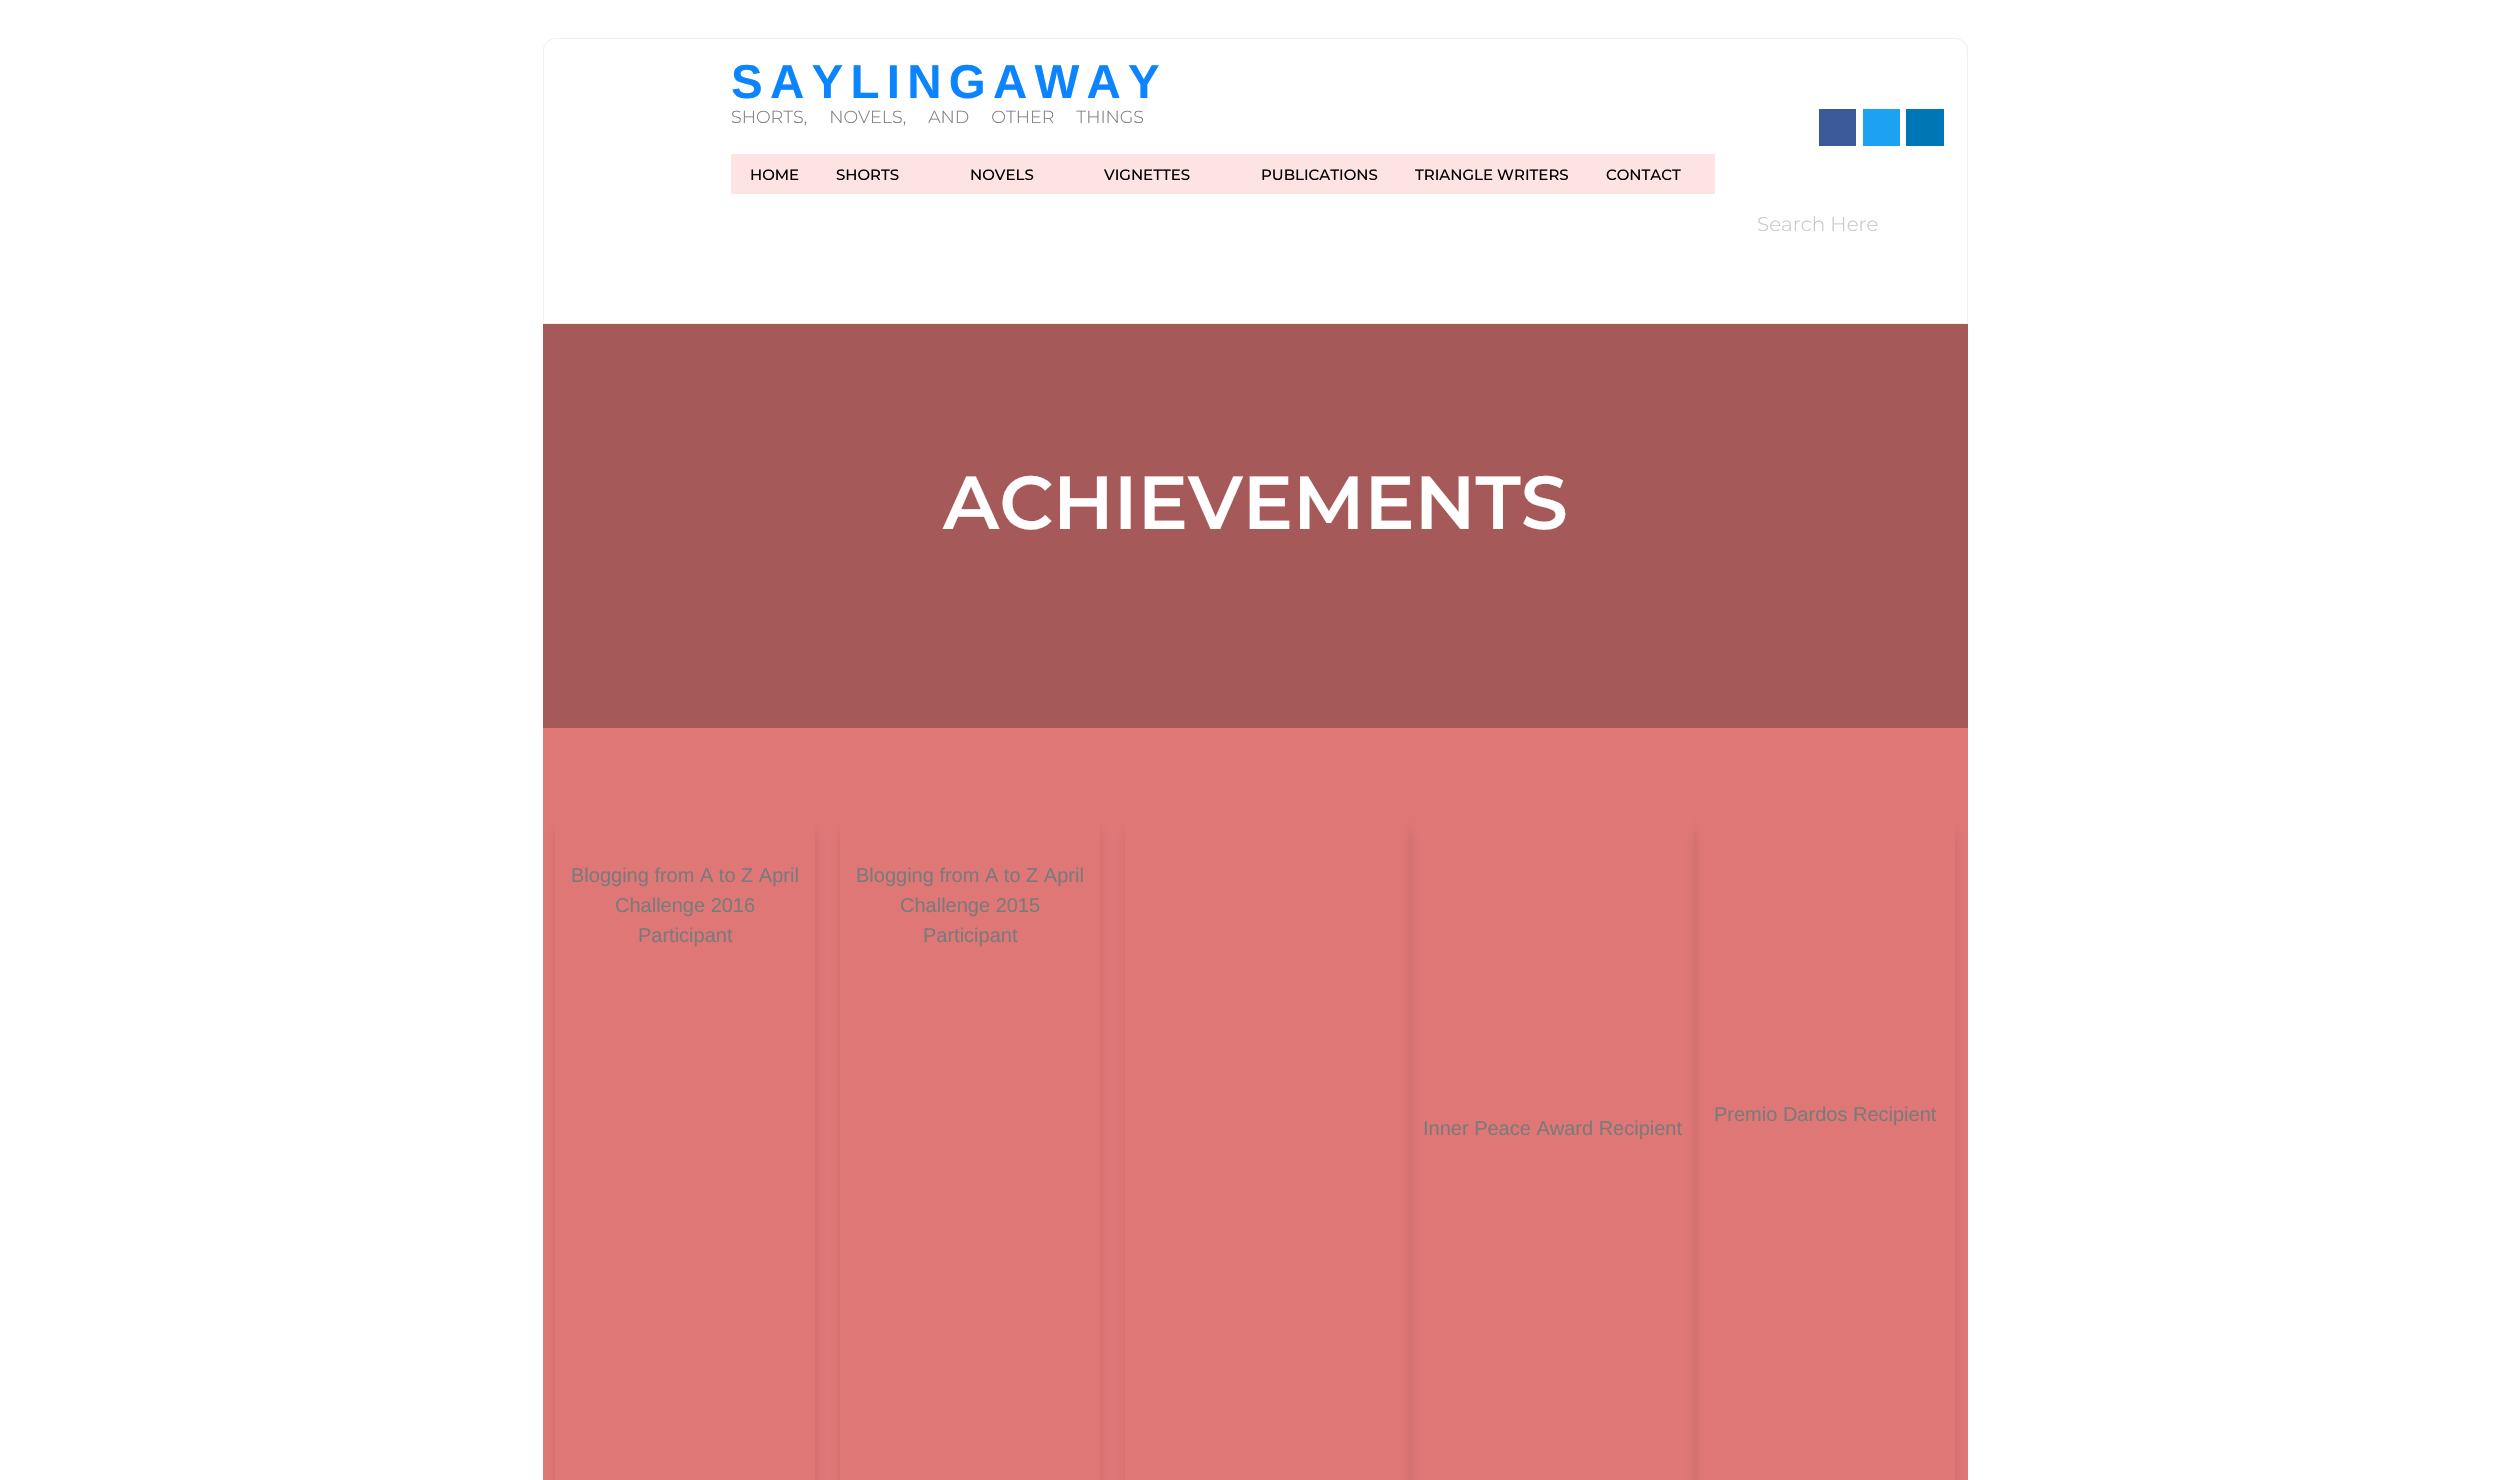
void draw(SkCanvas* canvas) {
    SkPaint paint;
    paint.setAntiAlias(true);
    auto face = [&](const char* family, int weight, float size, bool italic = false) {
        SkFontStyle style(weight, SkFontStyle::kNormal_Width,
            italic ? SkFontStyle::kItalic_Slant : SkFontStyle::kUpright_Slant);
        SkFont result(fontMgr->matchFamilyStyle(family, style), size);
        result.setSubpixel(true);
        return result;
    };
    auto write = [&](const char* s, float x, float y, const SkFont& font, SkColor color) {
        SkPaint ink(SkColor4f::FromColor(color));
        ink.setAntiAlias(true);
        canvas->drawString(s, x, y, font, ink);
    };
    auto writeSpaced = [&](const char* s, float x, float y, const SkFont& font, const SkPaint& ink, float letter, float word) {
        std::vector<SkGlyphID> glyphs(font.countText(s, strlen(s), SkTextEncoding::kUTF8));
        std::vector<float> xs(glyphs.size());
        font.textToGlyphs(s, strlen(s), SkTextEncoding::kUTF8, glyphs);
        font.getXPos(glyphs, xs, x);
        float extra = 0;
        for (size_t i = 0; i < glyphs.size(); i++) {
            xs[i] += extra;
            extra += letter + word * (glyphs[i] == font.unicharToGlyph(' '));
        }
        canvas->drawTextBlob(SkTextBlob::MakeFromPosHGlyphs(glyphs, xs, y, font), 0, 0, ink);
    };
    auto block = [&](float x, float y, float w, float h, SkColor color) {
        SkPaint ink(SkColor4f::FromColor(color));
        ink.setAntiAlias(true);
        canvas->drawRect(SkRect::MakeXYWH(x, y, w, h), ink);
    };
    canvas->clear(SK_ColorWHITE);
    paint.setStyle(SkPaint::kStroke_Style);
    paint.setStrokeWidth(1);
    paint.setColor(SkColorSetRGB(241, 241, 241));
    canvas->drawPath(SkPathBuilder().moveTo(556, 38.5f).lineTo(1955, 38.5f).cubicTo(1962, 38.5f, 1967.5f, 44, 1967.5f, 51).lineTo(1967.5f, 323.5f).lineTo(543.5f, 323.5f).lineTo(543.5f, 51).cubicTo(543.5f, 44, 549, 38.5f, 556, 38.5f).close().detach(), paint);
    paint.setStyle(SkPaint::kFill_Style);
    paint.setColor(SK_ColorWHITE);
    canvas->drawPath(SkPathBuilder().moveTo(556, 38.5f).lineTo(1955, 38.5f).cubicTo(1962, 38.5f, 1967.5f, 44, 1967.5f, 51).lineTo(1967.5f, 323.5f).lineTo(543.5f, 323.5f).lineTo(543.5f, 51).cubicTo(543.5f, 44, 549, 38.5f, 556, 38.5f).close().detach(), paint);
    paint.setStyle(SkPaint::kStroke_Style);
    paint.setColor(SkColorSetRGB(241, 241, 241));
    canvas->drawPath(SkPathBuilder().moveTo(556, 38.5f).lineTo(1955, 38.5f).cubicTo(1962, 38.5f, 1967.5f, 44, 1967.5f, 51).lineTo(1967.5f, 323.5f).lineTo(543.5f, 323.5f).lineTo(543.5f, 51).cubicTo(543.5f, 44, 549, 38.5f, 556, 38.5f).close().detach(), paint);
    auto kFont1 = face("Liberation Sans", 700, 47.5f);
    paint.setStyle(SkPaint::kFill_Style);
    paint.setColor(SkColorSetRGB(12, 132, 254));
    writeSpaced("SAYLINGAWAY", 731, 98, kFont1, paint, 7.25f, 0);
    auto kFont2 = face("Montserrat", 300, 17.5f);
    paint.setColor(SkColorSetRGB(122, 122, 122));
    writeSpaced("SHORTS, NOVELS, AND OTHER THINGS", 731, 123, kFont2, paint, 0, 17.5f);
    block(731, 154, 984, 40, SkColorSetRGB(254, 227, 227));
    auto kFont3 = face("Montserrat", 500, 15);
    write("HOME", 750, 180, kFont3, SK_ColorBLACK);
    write("SHORTS", 836, 180, kFont3, SK_ColorBLACK);
    write("NOVELS", 970, 180, kFont3, SK_ColorBLACK);
    write("VIGNETTES", 1104, 180, kFont3, SK_ColorBLACK);
    write("PUBLICATIONS", 1261, 180, kFont3, SK_ColorBLACK);
    write("TRIANGLE WRITERS", 1415, 180, kFont3, SK_ColorBLACK);
    write("CONTACT", 1606, 180, kFont3, SK_ColorBLACK);
    block(1819, 109, 37, 37, SkColorSetRGB(59, 89, 152));
    block(1863, 109, 37, 37, SkColorSetRGB(29, 161, 242));
    block(1906, 109, 38, 37, SkColorSetRGB(0, 119, 181));
    auto kFont4 = face("Montserrat", 300, 20);
    write("Search Here", 1757, 231, kFont4, SkColorSetRGB(199, 199, 199));
    block(543, 728, 1425, 752, SkColorSetRGB(224, 119, 119));
    block(543, 324, 1425, 404, SkColorSetRGB(166, 89, 89));
    auto kFont5 = face("Montserrat", 600, 75);
    write("ACHIEVEMENTS", 943, 529, kFont5, SK_ColorWHITE);
    canvas->save();
    canvas->clipPath(SkPathBuilder(SkPathFillType::kEvenOdd).moveTo(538, 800).lineTo(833, 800).lineTo(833, 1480).lineTo(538, 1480).close().moveTo(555, 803).lineTo(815, 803).lineTo(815, 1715).lineTo(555, 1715).close().detach(), true);
    paint.setColor(SkColorSetARGB(128, 0, 0, 0));
    paint.setMaskFilter(SkMaskFilter::MakeBlur(kNormal_SkBlurStyle, 9.5f));
    canvas->drawRect(SkRect::MakeXYWH(568, 830, 235, 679), paint);
    paint.setMaskFilter(nullptr);
    canvas->restore();
    auto kFont6 = face("Liberation Sans", 400, 20);
    write("Blogging from A to Z April", 571, 882, kFont6, SkColorSetRGB(122, 122, 122));
    write("Challenge 2016", 615, 912, kFont6, SkColorSetRGB(122, 122, 122));
    write("Participant", 638, 942, kFont6, SkColorSetRGB(122, 122, 122));
    canvas->save();
    canvas->clipPath(SkPathBuilder(SkPathFillType::kEvenOdd).moveTo(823, 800).lineTo(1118, 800).lineTo(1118, 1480).lineTo(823, 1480).close().moveTo(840, 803).lineTo(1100, 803).lineTo(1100, 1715).lineTo(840, 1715).close().detach(), true);
    paint.setMaskFilter(SkMaskFilter::MakeBlur(kNormal_SkBlurStyle, 9.5f));
    canvas->drawRect(SkRect::MakeXYWH(853, 830, 235, 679), paint);
    paint.setMaskFilter(nullptr);
    canvas->restore();
    write("Blogging from A to Z April", 856, 882, kFont6, SkColorSetRGB(122, 122, 122));
    write("Challenge 2015", 900, 912, kFont6, SkColorSetRGB(122, 122, 122));
    write("Participant", 923, 942, kFont6, SkColorSetRGB(122, 122, 122));
    canvas->save();
    canvas->clipPath(SkPathBuilder(SkPathFillType::kEvenOdd).moveTo(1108, 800).lineTo(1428, 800).lineTo(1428, 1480).lineTo(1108, 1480).close().moveTo(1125, 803).lineTo(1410, 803).lineTo(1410, 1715).lineTo(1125, 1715).close().detach(), true);
    paint.setMaskFilter(SkMaskFilter::MakeBlur(kNormal_SkBlurStyle, 9.5f));
    canvas->drawRect(SkRect::MakeXYWH(1138, 830, 260, 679), paint);
    paint.setMaskFilter(nullptr);
    canvas->restore();
    canvas->save();
    canvas->clipPath(SkPathBuilder(SkPathFillType::kEvenOdd).moveTo(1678, 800).lineTo(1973, 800).lineTo(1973, 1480).lineTo(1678, 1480).close().moveTo(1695, 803).lineTo(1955, 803).lineTo(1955, 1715).lineTo(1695, 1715).close().detach(), true);
    paint.setMaskFilter(SkMaskFilter::MakeBlur(kNormal_SkBlurStyle, 9.5f));
    canvas->drawRect(SkRect::MakeXYWH(1708, 830, 235, 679), paint);
    paint.setMaskFilter(nullptr);
    canvas->restore();
    write("Premio Dardos Recipient", 1714, 1121, kFont6, SkColorSetRGB(122, 122, 122));
    canvas->save();
    canvas->clipPath(SkPathBuilder(SkPathFillType::kEvenOdd).moveTo(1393, 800).lineTo(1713, 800).lineTo(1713, 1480).lineTo(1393, 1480).close().moveTo(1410, 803).lineTo(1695, 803).lineTo(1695, 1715).lineTo(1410, 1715).close().detach(), true);
    paint.setMaskFilter(SkMaskFilter::MakeBlur(kNormal_SkBlurStyle, 9.5f));
    canvas->drawRect(SkRect::MakeXYWH(1423, 830, 260, 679), paint);
    paint.setMaskFilter(nullptr);
    canvas->restore();
    write("Inner Peace Award Recipient", 1423, 1135, kFont6, SkColorSetRGB(122, 122, 122));
}
